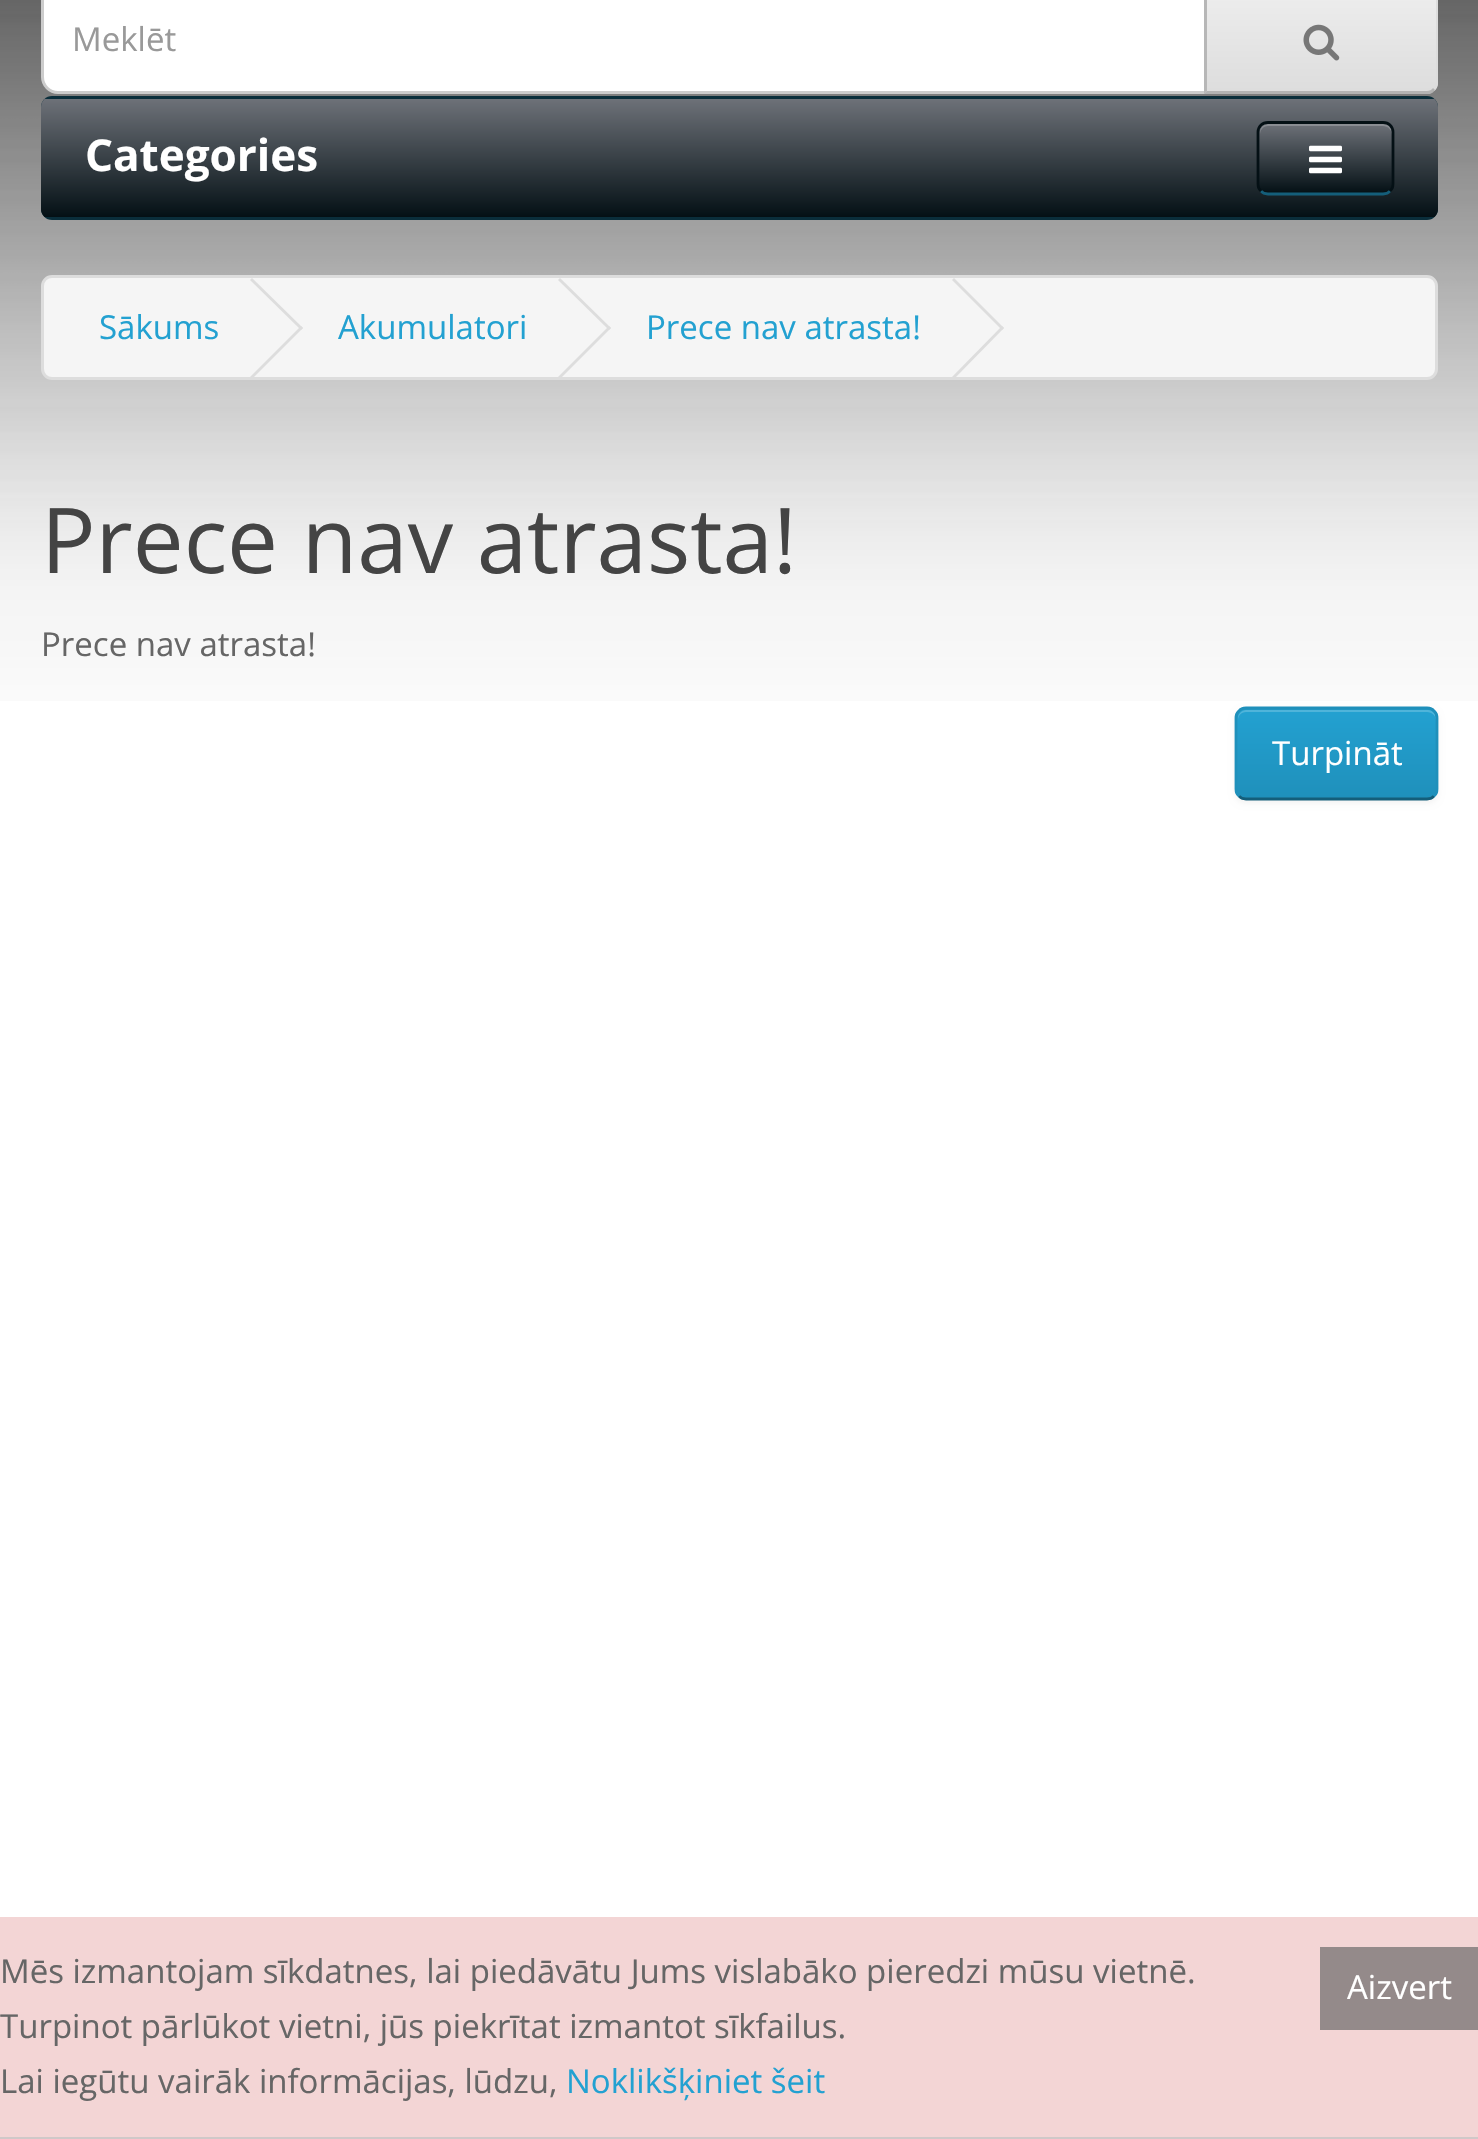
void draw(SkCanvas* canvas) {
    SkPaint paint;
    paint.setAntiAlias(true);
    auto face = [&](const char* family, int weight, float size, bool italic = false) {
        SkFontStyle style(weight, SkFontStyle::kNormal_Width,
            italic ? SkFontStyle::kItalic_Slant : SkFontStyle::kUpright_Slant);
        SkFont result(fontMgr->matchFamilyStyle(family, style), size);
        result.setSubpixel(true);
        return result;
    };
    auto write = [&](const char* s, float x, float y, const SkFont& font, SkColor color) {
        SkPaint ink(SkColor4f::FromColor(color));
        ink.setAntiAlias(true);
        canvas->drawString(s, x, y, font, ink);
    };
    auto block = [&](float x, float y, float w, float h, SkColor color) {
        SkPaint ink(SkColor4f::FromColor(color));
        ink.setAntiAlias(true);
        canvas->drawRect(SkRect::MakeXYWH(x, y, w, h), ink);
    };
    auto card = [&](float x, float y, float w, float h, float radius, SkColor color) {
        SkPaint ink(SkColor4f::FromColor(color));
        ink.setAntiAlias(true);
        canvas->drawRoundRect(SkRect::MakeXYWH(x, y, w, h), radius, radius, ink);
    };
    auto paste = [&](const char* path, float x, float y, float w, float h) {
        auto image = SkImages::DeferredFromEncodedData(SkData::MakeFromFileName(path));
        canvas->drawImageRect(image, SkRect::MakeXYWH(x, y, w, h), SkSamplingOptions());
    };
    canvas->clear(SK_ColorWHITE);
    paste("pic1.png", 0, 0, 1478, 701);
    paint.setColor(SK_ColorWHITE);
    canvas->drawPath(SkPathBuilder().moveTo(58, -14.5f).lineTo(1205.5f, -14.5f).lineTo(1205.5f, 92.5f).lineTo(58, 92.5f).cubicTo(49.5f, 92.5f, 42.5f, 85.5f, 42.5f, 77).lineTo(42.5f, 1).cubicTo(42.5f, -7.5f, 49.5f, -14.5f, 58, -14.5f).close().detach(), paint);
    paint.setStyle(SkPaint::kStroke_Style);
    paint.setStrokeWidth(3);
    paint.setColor(SkColorSetRGB(204, 204, 204));
    canvas->drawPath(SkPathBuilder().moveTo(58, -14.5f).lineTo(1205.5f, -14.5f).lineTo(1205.5f, 92.5f).lineTo(58, 92.5f).cubicTo(49.5f, 92.5f, 42.5f, 85.5f, 42.5f, 77).lineTo(42.5f, 1).cubicTo(42.5f, -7.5f, 49.5f, -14.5f, 58, -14.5f).close().detach(), paint);
    auto kFont1 = face("Open Sans", 400, 33);
    write("Meklēt", 72, 51, kFont1, SkColorSetRGB(153, 153, 153));
    canvas->save();
    canvas->clipPath(SkPathBuilder().moveTo(1205, -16).lineTo(1427, -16).cubicTo(1433, -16, 1438, -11, 1438, -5).lineTo(1438, 83).cubicTo(1438, 89, 1433, 94, 1427, 94).lineTo(1205, 94).close().detach(), true);
    paint.setStyle(SkPaint::kFill_Style);
    {
        const SkColor colors[] = {SkColorSetRGB(238, 238, 238), SkColorSetRGB(221, 221, 221)};
        const float stops[] = {0, 1};
        const SkPoint ends[] = {{1321, -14}, {1321, 91}};
        paint.setShader(SkGradientShader::MakeLinear(ends, colors, stops, 2, SkTileMode::kClamp));
        paint.setAlpha(255);
    }
    canvas->drawRect(SkRect::MakeXYWH(1207, 0, 231, 91), paint);
    canvas->restore();
    paint.setShader(nullptr);
    paint.setColor(SkColorSetRGB(221, 221, 221));
    canvas->drawPath(SkPathBuilder().moveTo(1435, -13).cubicTo(1437, -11, 1438, -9, 1438, -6).lineTo(1438, 82).cubicTo(1438, 85, 1437, 88, 1435, 90).lineTo(1433, 88).cubicTo(1435, 87, 1436, 85, 1436, 82).lineTo(1436, -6).cubicTo(1436, -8, 1435, -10, 1433, -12).close().detach(), paint);
    paint.setColor(SkColorSetRGB(179, 179, 179));
    canvas->drawPath(SkPathBuilder().moveTo(1435, 90).cubicTo(1434, 92, 1432, 93, 1430, 94).lineTo(1204, 94).lineTo(1207, 91).lineTo(1427, 91).cubicTo(1429, 91, 1432, 90, 1433, 88).close().detach(), paint);
    paint.setColor(SkColorSetRGB(183, 183, 183));
    canvas->drawPath(SkPathBuilder().moveTo(1207, -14).lineTo(1204, -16).lineTo(1204, 94).lineTo(1207, 91).close().detach(), paint);
    paste("pic2.png", 1303, 24, 37, 37);
    card(41, 96, 1397, 124, 11, SkColorSetRGB(10, 46, 59));
    canvas->save();
    canvas->clipPath(SkPathBuilder().moveTo(52, 96).lineTo(1427, 96).cubicTo(1433, 96, 1438, 101, 1438, 107).lineTo(1438, 209).cubicTo(1438, 215, 1433, 220, 1427, 220).lineTo(52, 220).cubicTo(46, 220, 41, 215, 41, 209).lineTo(41, 107).cubicTo(41, 101, 46, 96, 52, 96).close().detach(), true);
    {
        const SkColor colors[] = {SkColorSetRGB(109, 113, 120), SkColorSetRGB(4, 16, 21)};
        const float stops[] = {0, 1};
        const SkPoint ends[] = {{740, 99}, {740, 217}};
        paint.setShader(SkGradientShader::MakeLinear(ends, colors, stops, 2, SkTileMode::kClamp));
        paint.setAlpha(255);
    }
    canvas->drawRect(SkRect::MakeXYWH(41, 99, 1397, 118), paint);
    canvas->restore();
    auto kFont2 = face("Open Sans", 700, 44);
    write("Categories", 85, 171, kFont2, SK_ColorWHITE);
    canvas->save();
    canvas->clipPath(SkPathBuilder().moveTo(1268, 121).lineTo(1383, 121).cubicTo(1389, 121, 1394, 126, 1394, 132).lineTo(1394, 184).cubicTo(1394, 190, 1389, 195, 1383, 195).lineTo(1268, 195).cubicTo(1262, 195, 1257, 190, 1257, 184).lineTo(1257, 132).cubicTo(1257, 126, 1262, 121, 1268, 121).close().detach(), true);
    {
        const SkColor colors[] = {SkColorSetRGB(109, 113, 120), SkColorSetRGB(4, 16, 21)};
        const float stops[] = {0, 1};
        const SkPoint ends[] = {{1326, 124}, {1326, 193}};
        paint.setShader(SkGradientShader::MakeLinear(ends, colors, stops, 2, SkTileMode::kClamp));
        paint.setAlpha(255);
    }
    canvas->drawRect(SkRect::MakeXYWH(1257, 124, 137, 69), paint);
    canvas->restore();
    paint.setShader(nullptr);
    paint.setColor(SkColorSetARGB(51, 255, 255, 255));
    canvas->drawPath(SkPathBuilder().moveTo(1268, 126).lineTo(1383, 126).cubicTo(1388, 126, 1392, 130, 1392, 135).lineTo(1392, 132).cubicTo(1392, 128, 1388, 124, 1384, 124).lineTo(1268, 124).cubicTo(1264, 124, 1260, 128, 1260, 132).lineTo(1260, 135).cubicTo(1260, 130, 1263, 126, 1268, 126).close().detach(), paint);
    paint.setStyle(SkPaint::kStroke_Style);
    paint.setStrokeWidth(2.8f);
    paint.setColor(SkColorSetRGB(20, 94, 122));
    canvas->drawPath(SkPathBuilder().moveTo(1390, 191).cubicTo(1388.5f, 193, 1386, 194, 1383, 194).lineTo(1268, 194).cubicTo(1265, 194, 1262.5f, 193, 1261, 191).detach(), paint);
    paint.setColor(SkColorSetRGB(4, 16, 21));
    canvas->drawPath(SkPathBuilder().moveTo(1261, 191).cubicTo(1259, 189.5f, 1258, 187, 1258, 184).lineTo(1258, 132).cubicTo(1258, 129.5f, 1259, 127, 1261, 125).cubicTo(1262.5f, 123.5f, 1265, 122.5f, 1268, 122.5f).lineTo(1383, 122.5f).cubicTo(1386, 122.5f, 1388.5f, 123.5f, 1390, 125).cubicTo(1392, 127, 1393, 129.5f, 1393, 132).lineTo(1393, 184).cubicTo(1393, 187, 1392, 189.5f, 1390, 191).detach(), paint);
    paste("pic3.png", 1309, 145, 33, 29);
    paint.setStyle(SkPaint::kFill_Style);
    paint.setColor(SkColorSetRGB(245, 245, 245));
    canvas->drawRoundRect(SkRect::MakeXYWH(42.5f, 276.5f, 1394, 102), 9.5f, 9.5f, paint);
    paint.setStyle(SkPaint::kStroke_Style);
    paint.setStrokeWidth(3);
    paint.setColor(SkColorSetRGB(221, 221, 221));
    canvas->drawRoundRect(SkRect::MakeXYWH(42.5f, 276.5f, 1394, 102), 9.5f, 9.5f, paint);
    write("Sākums", 99, 339, kFont1, SkColorSetRGB(35, 161, 209));
    paint.setStyle(SkPaint::kFill_Style);
    canvas->drawPath(SkPathBuilder().moveTo(250, 280).lineTo(252, 278).lineTo(303, 328).lineTo(301, 330).close().detach(), paint);
    canvas->drawPath(SkPathBuilder().moveTo(250, 377).lineTo(301, 326).lineTo(303, 328).lineTo(252, 379).close().detach(), paint);
    write("Akumulatori", 338, 339, kFont1, SkColorSetRGB(35, 161, 209));
    canvas->drawPath(SkPathBuilder().moveTo(558, 280).lineTo(560, 278).lineTo(611, 328).lineTo(609, 330).close().detach(), paint);
    canvas->drawPath(SkPathBuilder().moveTo(558, 377).lineTo(609, 326).lineTo(611, 328).lineTo(560, 379).close().detach(), paint);
    write("Prece nav atrasta!", 646, 339, kFont1, SkColorSetRGB(35, 161, 209));
    canvas->drawPath(SkPathBuilder().moveTo(952, 280).lineTo(954, 278).lineTo(1004, 328).lineTo(1002, 330).close().detach(), paint);
    canvas->drawPath(SkPathBuilder().moveTo(952, 377).lineTo(1002, 326).lineTo(1004, 328).lineTo(954, 379).close().detach(), paint);
    auto kFont3 = face("Open Sans", 400, 90.75f);
    write("Prece nav atrasta!", 41, 573, kFont3, SkColorSetRGB(68, 68, 68));
    write("Prece nav atrasta!", 41, 656, kFont1, SkColorSetRGB(102, 102, 102));
    paint.setColor(SkColorSetARGB(13, 0, 0, 0));
    paint.setMaskFilter(SkMaskFilter::MakeBlur(kNormal_SkBlurStyle, 3));
    canvas->drawRoundRect(SkRect::MakeXYWH(1235, 710, 203, 93), 11, 11, paint);
    paint.setMaskFilter(nullptr);
    card(1235, 707, 203, 93, 11, SkColorSetRGB(34, 154, 200));
    canvas->save();
    canvas->clipPath(SkPathBuilder().moveTo(1246, 707).lineTo(1427, 707).cubicTo(1433, 707, 1438, 712, 1438, 718).lineTo(1438, 789).cubicTo(1438, 795, 1433, 800, 1427, 800).lineTo(1246, 800).cubicTo(1240, 800, 1235, 795, 1235, 789).lineTo(1235, 718).cubicTo(1235, 712, 1240, 707, 1246, 707).close().detach(), true);
    {
        const SkColor colors[] = {SkColorSetRGB(35, 161, 209), SkColorSetRGB(31, 144, 187)};
        const float stops[] = {0, 1};
        const SkPoint ends[] = {{1337, 710}, {1337, 798}};
        paint.setShader(SkGradientShader::MakeLinear(ends, colors, stops, 2, SkTileMode::kClamp));
        paint.setAlpha(255);
    }
    canvas->drawRect(SkRect::MakeXYWH(1235, 710, 203, 88), paint);
    canvas->restore();
    paint.setShader(nullptr);
    paint.setColor(SkColorSetRGB(79, 180, 218));
    canvas->drawPath(SkPathBuilder().moveTo(1246, 712).lineTo(1427, 712).cubicTo(1432, 712, 1436, 716, 1436, 720).lineTo(1436, 718).cubicTo(1436, 714, 1432, 710, 1428, 710).lineTo(1246, 710).cubicTo(1242, 710, 1238, 714, 1238, 718).lineTo(1238, 720).cubicTo(1238, 716, 1241, 712, 1246, 712).close().detach(), paint);
    paint.setStyle(SkPaint::kStroke_Style);
    paint.setStrokeWidth(2.8f);
    paint.setColor(SkColorSetRGB(20, 94, 122));
    canvas->drawPath(SkPathBuilder().moveTo(1434, 796).cubicTo(1432.5f, 798, 1430, 799, 1427, 799).lineTo(1246, 799).cubicTo(1243, 799, 1240.5f, 798, 1239, 796).detach(), paint);
    paint.setColor(SkColorSetRGB(31, 144, 187));
    canvas->drawPath(SkPathBuilder().moveTo(1239, 796).cubicTo(1237, 794.5f, 1236, 792, 1236, 789).lineTo(1236, 718).cubicTo(1236, 715, 1237, 712.5f, 1239, 711).cubicTo(1240.5f, 709, 1243, 708, 1246, 708).lineTo(1427, 708).cubicTo(1430, 708, 1432.5f, 709, 1434, 711).cubicTo(1436, 712.5f, 1437, 715, 1437, 718).lineTo(1437, 789).cubicTo(1437, 792, 1436, 794.5f, 1434, 796).detach(), paint);
    write("Turpināt", 1272, 765, kFont1, SK_ColorWHITE);
    block(0, 1917, 1478, 220, SkColorSetRGB(243, 213, 213));
    block(0, 2137, 1478, 2, SkColorSetRGB(208, 200, 200));
    write("Mēs izmantojam sīkdatnes, lai piedāvātu Jums vislabāko pieredzi mūsu vietnē.", 0, 1983, kFont1, SkColorSetRGB(102, 102, 102));
    block(1320, 1947, 158, 83, SkColorSetRGB(148, 138, 138));
    write("Aizvert", 1347, 1999, kFont1, SK_ColorWHITE);
    write("Turpinot pārlūkot vietni, jūs piekrītat izmantot sīkfailus.", 0, 2038, kFont1, SkColorSetRGB(102, 102, 102));
    write("Lai iegūtu vairāk informācijas, lūdzu,", 0, 2093, kFont1, SkColorSetRGB(102, 102, 102));
    write("Noklikšķiniet šeit", 566, 2093, kFont1, SkColorSetRGB(35, 161, 209));
}
